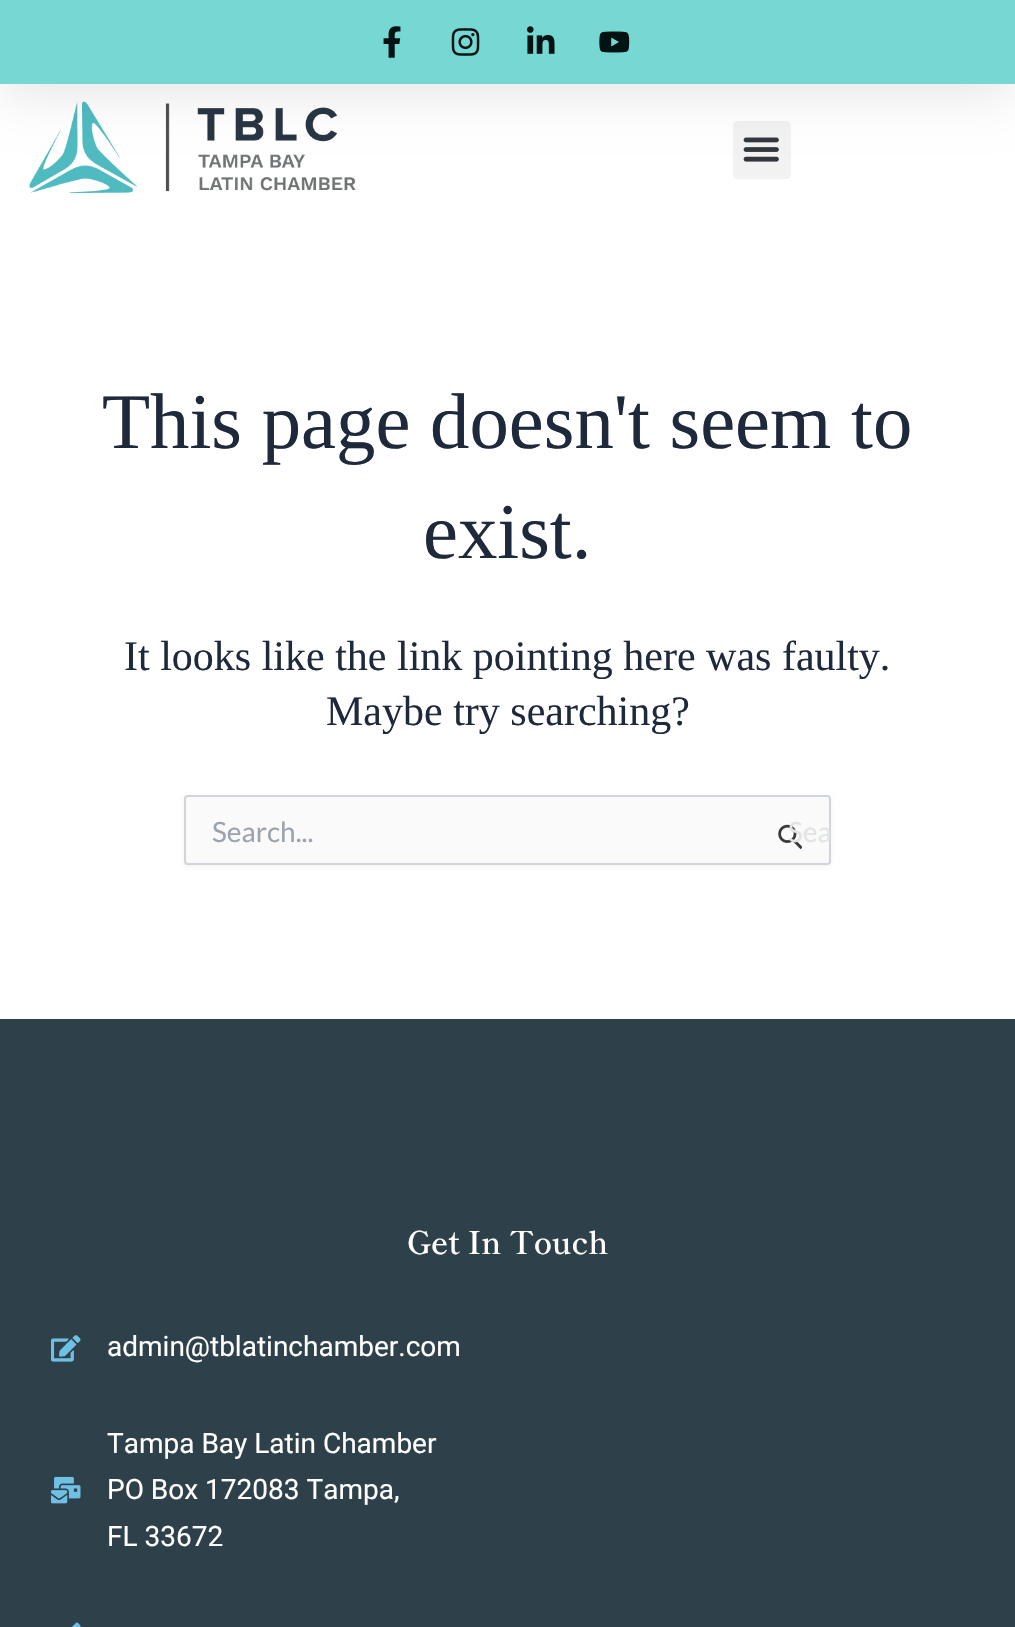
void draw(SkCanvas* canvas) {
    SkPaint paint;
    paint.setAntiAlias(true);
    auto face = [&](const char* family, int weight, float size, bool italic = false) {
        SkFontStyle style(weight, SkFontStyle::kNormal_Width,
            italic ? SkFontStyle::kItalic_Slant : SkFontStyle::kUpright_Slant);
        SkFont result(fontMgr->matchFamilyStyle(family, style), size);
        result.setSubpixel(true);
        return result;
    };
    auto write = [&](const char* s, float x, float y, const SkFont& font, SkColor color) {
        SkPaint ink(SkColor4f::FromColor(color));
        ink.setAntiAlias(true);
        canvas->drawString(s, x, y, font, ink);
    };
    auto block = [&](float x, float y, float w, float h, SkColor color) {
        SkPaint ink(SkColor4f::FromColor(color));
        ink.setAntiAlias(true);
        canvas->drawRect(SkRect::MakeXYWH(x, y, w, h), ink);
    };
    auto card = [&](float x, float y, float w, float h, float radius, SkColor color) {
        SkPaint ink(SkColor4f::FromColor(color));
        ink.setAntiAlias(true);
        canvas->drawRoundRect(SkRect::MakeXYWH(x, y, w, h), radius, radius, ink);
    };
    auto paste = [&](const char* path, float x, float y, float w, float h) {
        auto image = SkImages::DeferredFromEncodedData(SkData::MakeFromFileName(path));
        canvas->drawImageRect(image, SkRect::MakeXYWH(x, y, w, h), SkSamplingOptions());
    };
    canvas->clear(SK_ColorWHITE);
    paste("pic5.png", 29, 101, 327, 93);
    card(733, 121, 58, 58, 5, SkColorSetRGB(242, 242, 242));
    paste("pic6.png", 743, 137, 36, 25);
    paint.setColor(SkColorSetARGB(26, 0, 0, 0));
    paint.setMaskFilter(SkMaskFilter::MakeBlur(kNormal_SkBlurStyle, 26));
    canvas->drawRect(SkRect::MakeXYWH(0, 9, 1015, 84), paint);
    paint.setMaskFilter(nullptr);
    block(0, 0, 1015, 84, SkColorSetRGB(119, 215, 211));
    paste("pic1.png", 383, 26, 18, 32);
    paste("pic2.png", 451, 28, 29, 28);
    paste("pic3.png", 527, 26, 28, 28);
    paste("pic4.png", 599, 31, 31, 22);
    auto kFont1 = face("Liberation Serif", 400, 78.75f);
    write("This page doesn't seem to", 102, 448, kFont1, SkColorSetRGB(30, 41, 59));
    write("exist.", 423, 558, kFont1, SkColorSetRGB(30, 41, 59));
    auto kFont2 = face("Liberation Serif", 400, 42);
    write("It looks like the link pointing here was faulty.", 124, 670, kFont2, SkColorSetRGB(30, 41, 59));
    write("Maybe try searching?", 326, 725, kFont2, SkColorSetRGB(30, 41, 59));
    paint.setColor(SkColorSetARGB(13, 0, 0, 0));
    paint.setMaskFilter(SkMaskFilter::MakeBlur(kNormal_SkBlurStyle, 2));
    canvas->drawRoundRect(SkRect::MakeXYWH(184, 796, 647, 70), 4, 4, paint);
    paint.setMaskFilter(nullptr);
    paint.setColor(SkColorSetRGB(250, 250, 250));
    canvas->drawRoundRect(SkRect::MakeXYWH(185, 796, 645, 68), 3, 3, paint);
    paint.setStyle(SkPaint::kStroke_Style);
    paint.setStrokeWidth(2);
    paint.setColor(SkColorSetRGB(209, 213, 219));
    canvas->drawRoundRect(SkRect::MakeXYWH(185, 796, 645, 68), 3, 3, paint);
    auto kFont3 = face("Lato", 400, 28);
    write("Search...", 212, 842, kFont3, SkColorSetRGB(156, 163, 175));
    paste("pic7.png", 778, 824, 24, 26);
    write("Sea", 788, 842, kFont3, SkColorSetRGB(226, 227, 227));
    block(0, 1019, 1015, 608, SkColorSetRGB(46, 64, 74));
    auto kFont4 = face("Shippori Mincho", 600, 31.5f);
    write("Get In Touch", 407, 1254, kFont4, SK_ColorWHITE);
    paste("pic8.png", 51, 1335, 30, 27);
    auto kFont5 = face("Roboto", 400, 28);
    write("admin@tblatinchamber.com", 107, 1356, kFont5, SK_ColorWHITE);
    paste("pic9.png", 51, 1476, 30, 28);
    write("Tampa Bay Latin Chamber", 107, 1453, kFont5, SK_ColorWHITE);
    write("PO Box 172083 Tampa,", 107, 1499, kFont5, SK_ColorWHITE);
    write("FL 33672", 107, 1546, kFont5, SK_ColorWHITE);
    paste("pic10.png", 72, 1622, 9, 5);
}
